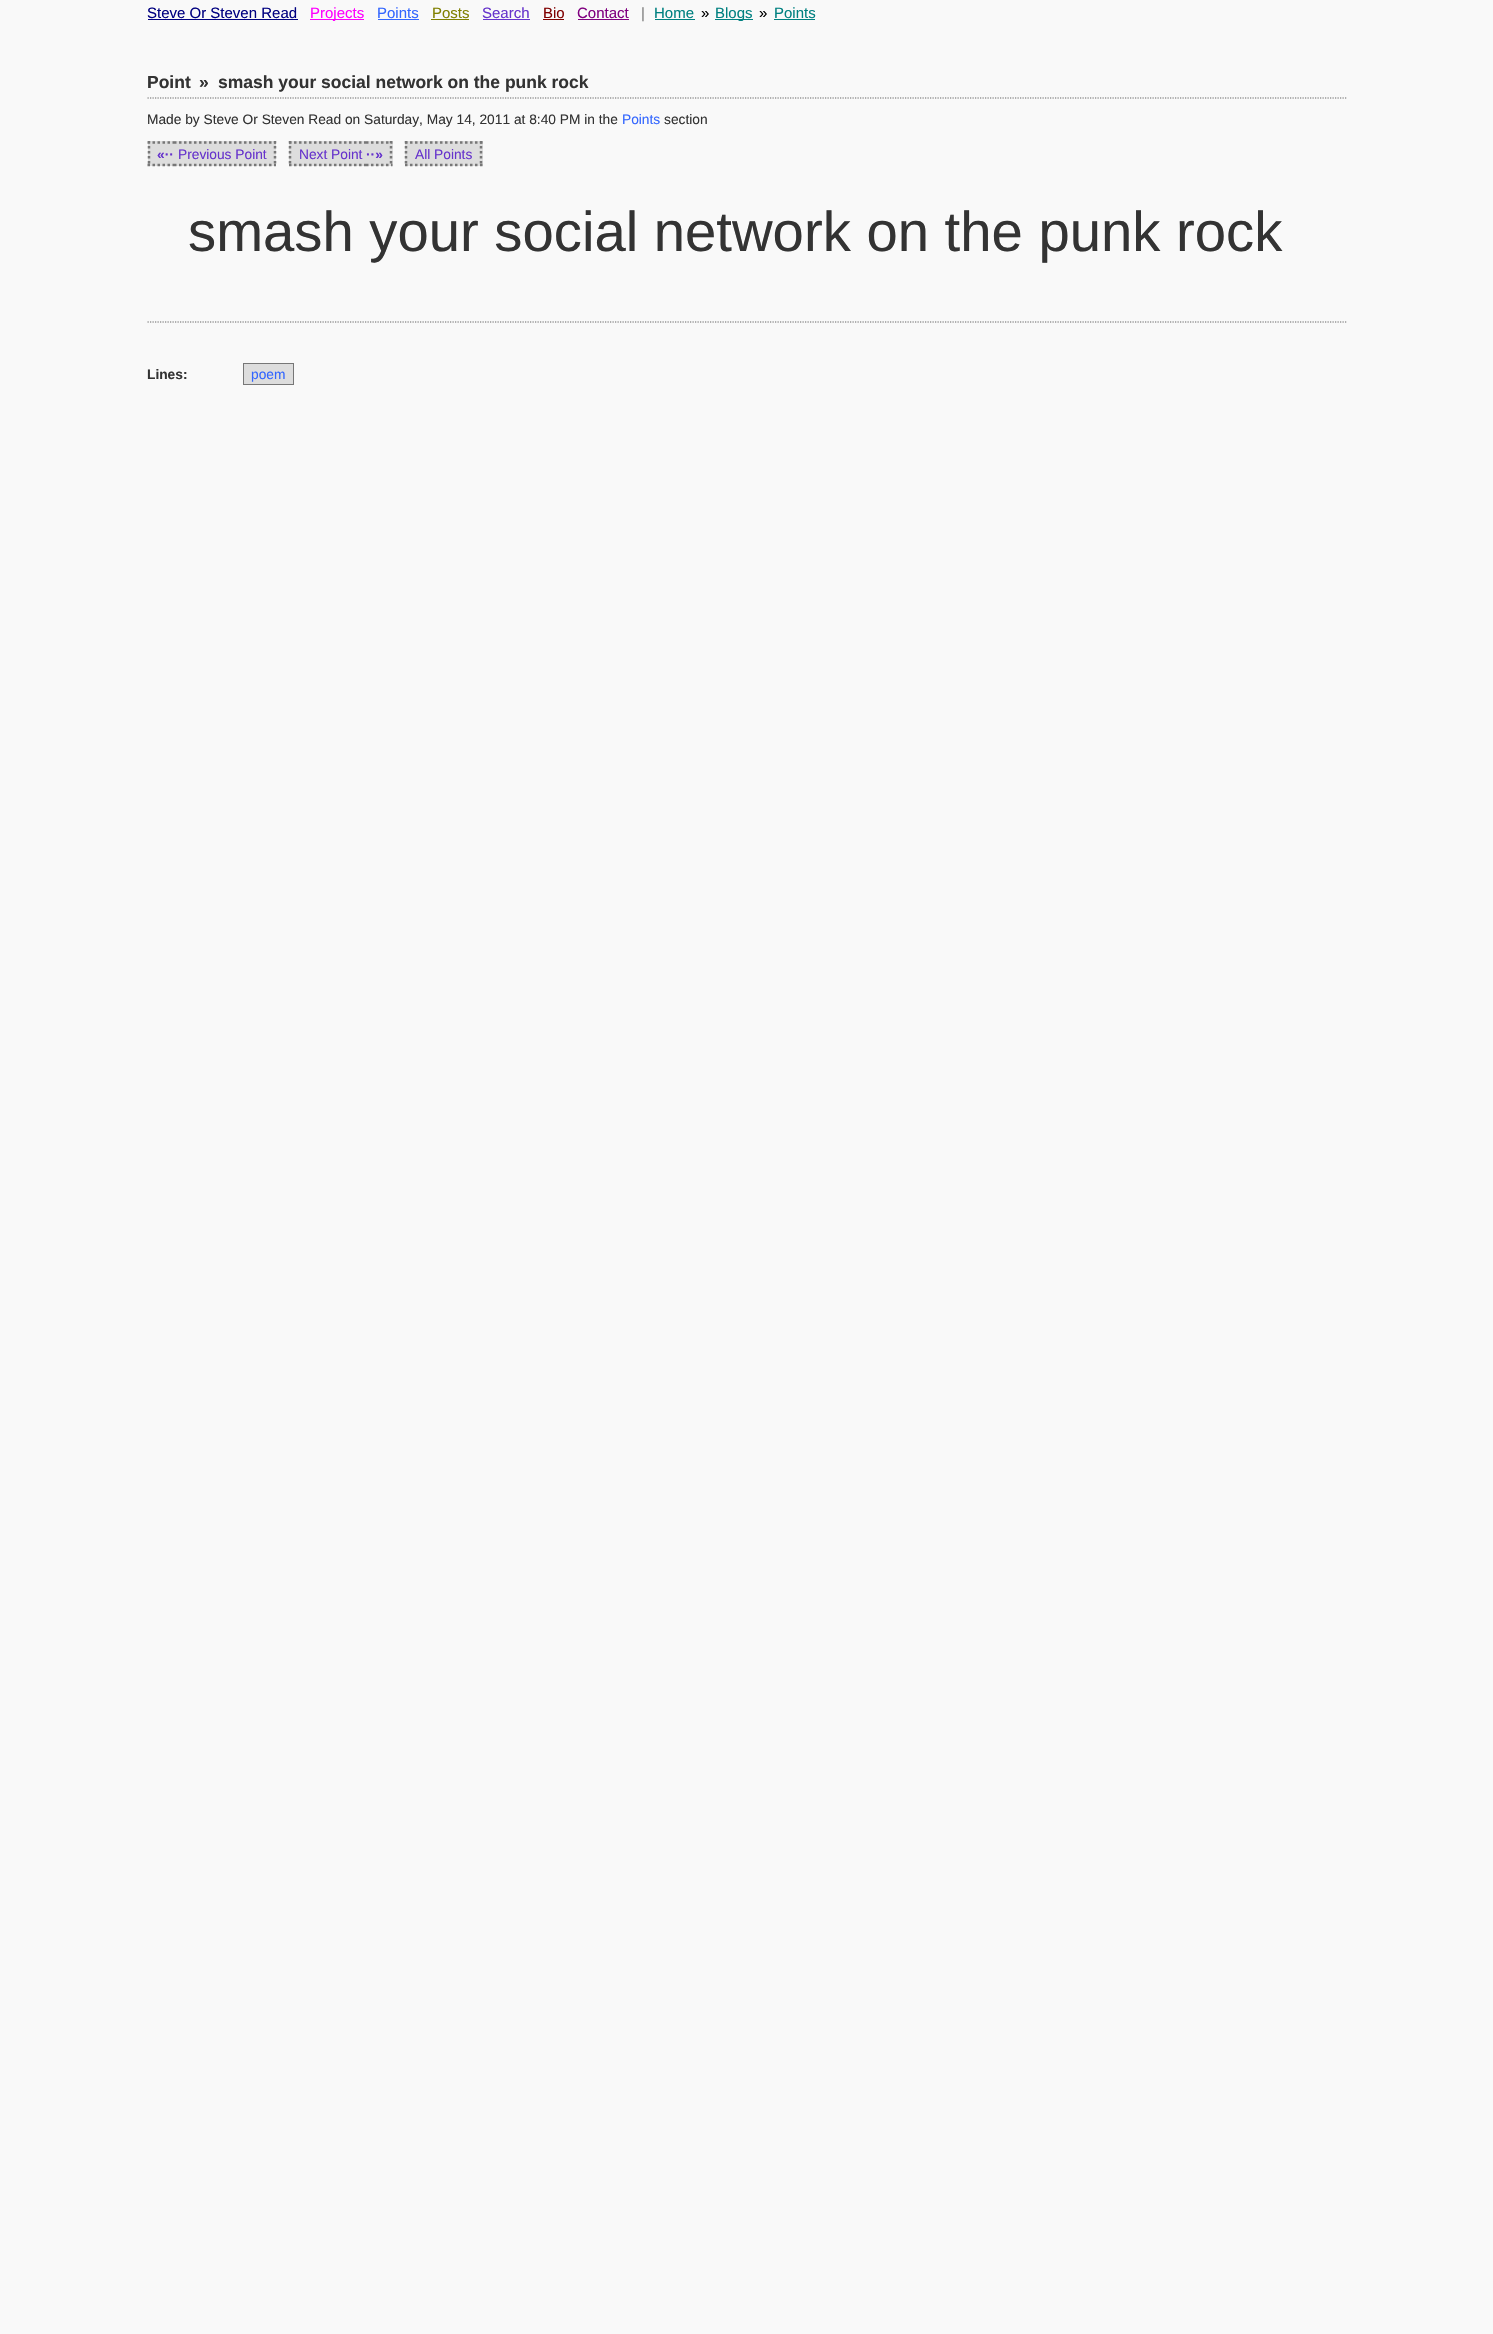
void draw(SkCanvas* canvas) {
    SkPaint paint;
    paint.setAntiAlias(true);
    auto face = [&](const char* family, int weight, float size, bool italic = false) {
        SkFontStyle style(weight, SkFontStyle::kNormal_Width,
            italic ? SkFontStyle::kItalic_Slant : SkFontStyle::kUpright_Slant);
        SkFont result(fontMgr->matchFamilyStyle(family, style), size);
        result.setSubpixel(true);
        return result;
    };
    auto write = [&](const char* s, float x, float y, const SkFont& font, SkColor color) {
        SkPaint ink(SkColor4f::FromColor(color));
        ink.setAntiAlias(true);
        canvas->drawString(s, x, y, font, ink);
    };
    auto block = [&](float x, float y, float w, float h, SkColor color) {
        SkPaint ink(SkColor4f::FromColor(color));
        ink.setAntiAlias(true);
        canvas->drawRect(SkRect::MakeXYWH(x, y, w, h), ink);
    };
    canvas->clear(SkColorSetRGB(249, 249, 249));
    auto kFont1 = face("Liberation Sans", 400, 15);
    write("Steve Or Steven Read", 147, 18, kFont1, SkColorSetRGB(0, 0, 128));
    block(148, 19, 150, 1, SkColorSetRGB(0, 0, 128));
    block(310, 19, 54, 1, SkColorSetRGB(255, 0, 255));
    write("Projects", 310, 18, kFont1, SkColorSetRGB(255, 0, 255));
    write("Points", 377, 18, kFont1, SkColorSetRGB(51, 102, 255));
    block(378, 19, 41, 1, SkColorSetRGB(51, 102, 255));
    write("Posts", 432, 18, kFont1, SkColorSetRGB(128, 128, 0));
    block(431, 19, 38, 1, SkColorSetRGB(128, 128, 0));
    write("Search", 482, 18, kFont1, SkColorSetRGB(102, 51, 204));
    block(483, 19, 47, 1, SkColorSetRGB(102, 51, 204));
    write("Bio", 543, 18, kFont1, SkColorSetRGB(128, 0, 0));
    block(543, 19, 21, 1, SkColorSetRGB(128, 0, 0));
    write("Contact", 577, 18, kFont1, SkColorSetRGB(128, 0, 128));
    block(578, 19, 51, 1, SkColorSetRGB(128, 0, 128));
    write("|", 641, 18, kFont1, SkColorSetRGB(128, 128, 128));
    write("Home", 654, 18, kFont1, SkColorSetRGB(0, 128, 128));
    block(655, 19, 40, 1, SkColorSetRGB(0, 128, 128));
    write("»", 701, 18, kFont1, SK_ColorBLACK);
    block(715, 19, 38, 1, SkColorSetRGB(0, 128, 128));
    write("Blogs", 715, 18, kFont1, SkColorSetRGB(0, 128, 128));
    write("»", 759, 18, kFont1, SK_ColorBLACK);
    write("Points", 774, 18, kFont1, SkColorSetRGB(0, 128, 128));
    block(774, 19, 41, 1, SkColorSetRGB(0, 128, 128));
    paint.setStyle(SkPaint::kStroke_Style);
    paint.setStrokeWidth(1.2f);
    paint.setColor(SkColorSetRGB(102, 102, 102));
    paint.setPathEffect(SkDashPathEffect::Make({{1.25f, 1.25f}}, 0));
    canvas->drawPath(SkPathBuilder().moveTo(147.5f, 98).lineTo(1347.5f, 98).detach(), paint);
    paint.setPathEffect(nullptr);
    auto kFont2 = face("Liberation Sans", 700, 17.5f);
    write("Point", 147, 88, kFont2, SkColorSetRGB(51, 51, 51));
    write("»", 199, 88, kFont2, SkColorSetRGB(51, 51, 51));
    write("smash your social network on the punk rock", 218, 88, kFont2, SkColorSetRGB(51, 51, 51));
    auto kFont3 = face("Liberation Sans", 400, 13.75f);
    write("Made by Steve Or Steven Read on Saturday, May 14, 2011 at 8:40 PM in the", 147, 124, kFont3, SkColorSetRGB(51, 51, 51));
    write("Points", 622, 124, kFont3, SkColorSetRGB(51, 102, 255));
    write("section", 664, 124, kFont3, SkColorSetRGB(51, 51, 51));
    block(148, 141, 128, 25, SkColorSetRGB(221, 221, 221));
    paint.setStrokeWidth(2.5f);
    paint.setColor(SkColorSetRGB(119, 119, 119));
    paint.setPathEffect(SkDashPathEffect::Make({{2.5f, 2.5f}}, 0));
    canvas->drawPath(SkPathBuilder().moveTo(147.5f, 142.5f).lineTo(174, 142.5f).moveTo(147.5f, 165).lineTo(174, 165).moveTo(149, 141).lineTo(149, 166).detach(), paint);
    paint.setPathEffect(nullptr);
    auto kFont4 = face("Liberation Sans", 700, 13.75f);
    write("«··", 157, 159, kFont4, SkColorSetRGB(102, 51, 204));
    paint.setPathEffect(SkDashPathEffect::Make({{2.5f, 2.5f}}, 0));
    canvas->drawPath(SkPathBuilder().moveTo(174, 142.5f).lineTo(276, 142.5f).detach(), paint);
    paint.setPathEffect(nullptr);
    paint.setPathEffect(SkDashPathEffect::Make({{2.5f, 2.5f}}, 0));
    canvas->drawPath(SkPathBuilder().moveTo(275, 141).lineTo(275, 166).detach(), paint);
    paint.setPathEffect(nullptr);
    paint.setPathEffect(SkDashPathEffect::Make({{2.5f, 2.5f}}, 0));
    canvas->drawPath(SkPathBuilder().moveTo(174, 165).lineTo(276, 165).detach(), paint);
    paint.setPathEffect(nullptr);
    write("Previous Point", 178, 159, kFont3, SkColorSetRGB(102, 51, 204));
    block(289, 141, 104, 25, SkColorSetRGB(221, 221, 221));
    write("Next Point", 299, 159, kFont3, SkColorSetRGB(102, 51, 204));
    paint.setPathEffect(SkDashPathEffect::Make({{2.5f, 2.5f}}, 0));
    canvas->drawPath(SkPathBuilder().moveTo(289, 142.5f).lineTo(366, 142.5f).detach(), paint);
    paint.setPathEffect(nullptr);
    paint.setPathEffect(SkDashPathEffect::Make({{2.5f, 2.5f}}, 0));
    canvas->drawPath(SkPathBuilder().moveTo(289, 165).lineTo(366, 165).detach(), paint);
    paint.setPathEffect(nullptr);
    paint.setPathEffect(SkDashPathEffect::Make({{2.5f, 2.5f}}, 0));
    canvas->drawPath(SkPathBuilder().moveTo(290, 141).lineTo(290, 166).detach(), paint);
    paint.setPathEffect(nullptr);
    paint.setPathEffect(SkDashPathEffect::Make({{2.5f, 2.5f}}, 0));
    canvas->drawPath(SkPathBuilder().moveTo(366, 142.5f).lineTo(392.5f, 142.5f).moveTo(391, 141).lineTo(391, 166).moveTo(366, 165).lineTo(392.5f, 165).detach(), paint);
    paint.setPathEffect(nullptr);
    write("··»", 366, 159, kFont4, SkColorSetRGB(102, 51, 204));
    block(405, 141, 78, 25, SkColorSetRGB(221, 221, 221));
    write("All Points", 415, 159, kFont3, SkColorSetRGB(102, 51, 204));
    paint.setPathEffect(SkDashPathEffect::Make({{2.5f, 2.5f}}, 0));
    canvas->drawPath(SkPathBuilder().moveTo(405, 142.5f).lineTo(482.5f, 142.5f).detach(), paint);
    paint.setPathEffect(nullptr);
    paint.setPathEffect(SkDashPathEffect::Make({{2.5f, 2.5f}}, 0));
    canvas->drawPath(SkPathBuilder().moveTo(481, 141).lineTo(481, 166).detach(), paint);
    paint.setPathEffect(nullptr);
    paint.setPathEffect(SkDashPathEffect::Make({{2.5f, 2.5f}}, 0));
    canvas->drawPath(SkPathBuilder().moveTo(405, 165).lineTo(482.5f, 165).detach(), paint);
    paint.setPathEffect(nullptr);
    paint.setPathEffect(SkDashPathEffect::Make({{2.5f, 2.5f}}, 0));
    canvas->drawPath(SkPathBuilder().moveTo(406, 141).lineTo(406, 166).detach(), paint);
    paint.setPathEffect(nullptr);
    auto kFont5 = face("Liberation Sans", 400, 56.25f);
    write("smash your social network on the punk rock", 188, 251, kFont5, SkColorSetRGB(51, 51, 51));
    paint.setStrokeWidth(1.2f);
    paint.setColor(SkColorSetRGB(102, 102, 102));
    paint.setPathEffect(SkDashPathEffect::Make({{1.25f, 1.25f}}, 0));
    canvas->drawPath(SkPathBuilder().moveTo(147.5f, 322).lineTo(1347.5f, 322).detach(), paint);
    paint.setPathEffect(nullptr);
    write("Lines:", 147, 379, kFont4, SkColorSetRGB(51, 51, 51));
    paint.setStyle(SkPaint::kFill_Style);
    paint.setColor(SkColorSetRGB(221, 221, 221));
    canvas->drawRect(SkRect::MakeXYWH(243.5f, 363.5f, 50, 21), paint);
    paint.setStyle(SkPaint::kStroke_Style);
    paint.setStrokeWidth(1);
    paint.setColor(SkColorSetRGB(119, 119, 119));
    canvas->drawRect(SkRect::MakeXYWH(243.5f, 363.5f, 50, 21), paint);
    write("poem", 251, 379, kFont3, SkColorSetRGB(51, 102, 255));
}
